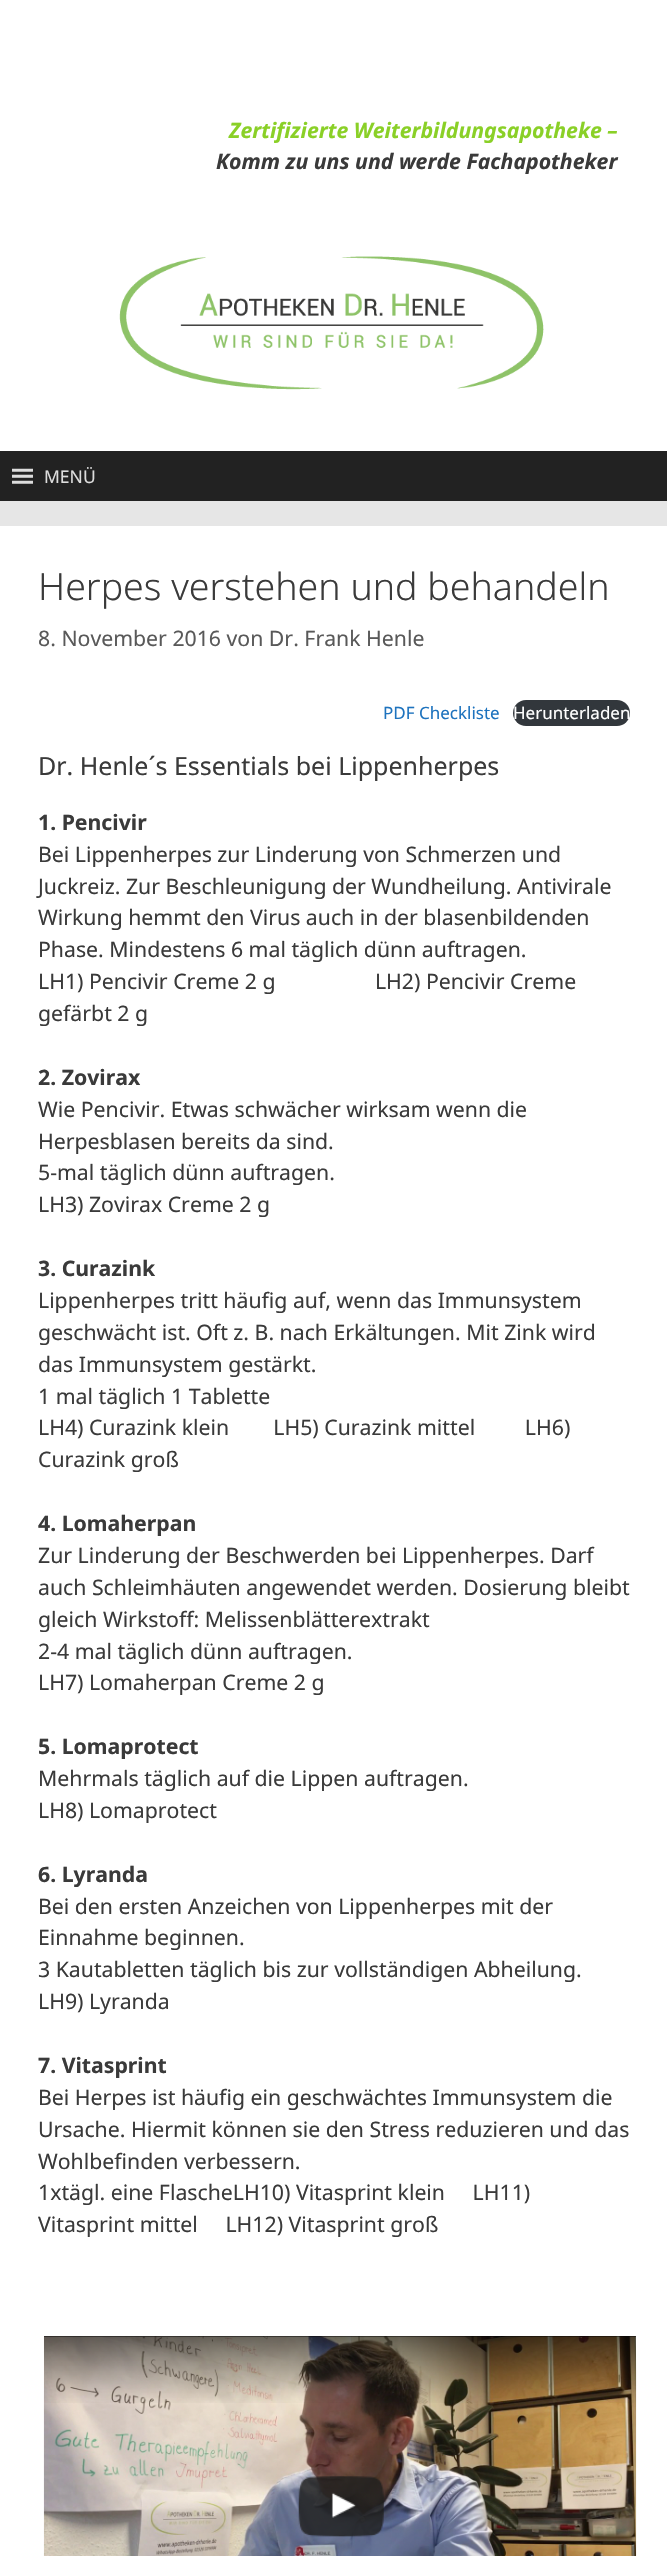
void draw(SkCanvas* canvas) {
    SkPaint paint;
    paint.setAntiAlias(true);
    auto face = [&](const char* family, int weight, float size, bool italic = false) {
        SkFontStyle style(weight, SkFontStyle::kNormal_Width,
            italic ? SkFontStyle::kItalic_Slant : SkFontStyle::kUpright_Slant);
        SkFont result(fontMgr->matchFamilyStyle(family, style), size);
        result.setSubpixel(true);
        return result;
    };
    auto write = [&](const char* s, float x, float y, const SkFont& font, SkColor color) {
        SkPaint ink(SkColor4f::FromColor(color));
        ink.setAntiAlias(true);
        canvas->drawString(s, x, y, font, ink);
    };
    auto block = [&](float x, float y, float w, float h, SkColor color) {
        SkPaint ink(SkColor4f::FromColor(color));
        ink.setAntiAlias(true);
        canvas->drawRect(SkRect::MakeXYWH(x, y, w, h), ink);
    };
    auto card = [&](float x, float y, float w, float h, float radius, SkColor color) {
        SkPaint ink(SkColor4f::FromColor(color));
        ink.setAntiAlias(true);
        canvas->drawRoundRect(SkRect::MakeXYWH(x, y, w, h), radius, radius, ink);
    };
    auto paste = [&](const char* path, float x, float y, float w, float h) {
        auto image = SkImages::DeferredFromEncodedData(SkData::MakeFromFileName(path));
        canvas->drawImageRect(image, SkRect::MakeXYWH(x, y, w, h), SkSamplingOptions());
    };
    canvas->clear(SkColorSetRGB(230, 230, 230));
    block(0, 0, 667, 451, SK_ColorWHITE);
    auto kFont1 = face("Noto Sans", 700, 21.25f, true);
    write("Zertifizierte Weiterbildungsapotheke –", 229, 138, kFont1, SkColorSetRGB(138, 208, 39));
    write("Komm zu uns und werde Fachapotheker", 216, 169, kFont1, SkColorSetRGB(58, 58, 58));
    paste("pic1.png", 119, 256, 425, 134);
    block(0, 451, 667, 50, SkColorSetRGB(34, 34, 34));
    paste("pic2.png", 12, 468, 21, 16);
    auto kFont2 = face("Noto Sans", 400, 17.5f);
    write("MENÜ", 44, 483, kFont2, SkColorSetRGB(221, 221, 221));
    block(0, 526, 667, 2030, SK_ColorWHITE);
    auto kFont3 = face("Noto Sans", 300, 37.5f);
    write("Herpes verstehen und behandeln", 38, 600, kFont3, SkColorSetRGB(58, 58, 58));
    auto kFont4 = face("Noto Sans", 400, 21.25f);
    write("8. November 2016 von Dr. Frank Henle", 38, 646, kFont4, SkColorSetRGB(89, 89, 89));
    auto kFont5 = face("Noto Sans", 400, 17);
    write("PDF Checkliste", 383, 719, kFont5, SkColorSetRGB(30, 115, 190));
    card(513, 700, 117, 26, 13, SkColorSetRGB(50, 55, 60));
    write("Herunterladen", 513, 719, kFont5, SK_ColorWHITE);
    auto kFont6 = face("Noto Sans", 400, 25);
    write("Dr. Henle´s Essentials bei Lippenherpes", 38, 775, kFont6, SkColorSetRGB(58, 58, 58));
    auto kFont7 = face("Noto Sans", 700, 21.25f);
    write("1. Pencivir", 38, 830, kFont7, SkColorSetRGB(58, 58, 58));
    write("Bei Lippenherpes zur Linderung von Schmerzen und", 38, 862, kFont4, SkColorSetRGB(58, 58, 58));
    write("Juckreiz. Zur Beschleunigung der Wundheilung. Antivirale", 38, 894, kFont4, SkColorSetRGB(58, 58, 58));
    write("Wirkung hemmt den Virus auch in der blasenbildenden", 38, 925, kFont4, SkColorSetRGB(58, 58, 58));
    write("Phase. Mindestens 6 mal täglich dünn auftragen.", 38, 957, kFont4, SkColorSetRGB(58, 58, 58));
    write("LH1) Pencivir Creme 2 g                  LH2) Pencivir Creme", 38, 989, kFont4, SkColorSetRGB(58, 58, 58));
    write("gefärbt 2 g", 38, 1021, kFont4, SkColorSetRGB(58, 58, 58));
    write("2. Zovirax", 38, 1085, kFont7, SkColorSetRGB(58, 58, 58));
    write("Wie Pencivir. Etwas schwächer wirksam wenn die", 38, 1117, kFont4, SkColorSetRGB(58, 58, 58));
    write("Herpesblasen bereits da sind.", 38, 1149, kFont4, SkColorSetRGB(58, 58, 58));
    write("5-mal täglich dünn auftragen.", 38, 1180, kFont4, SkColorSetRGB(58, 58, 58));
    write("LH3) Zovirax Creme 2 g", 38, 1212, kFont4, SkColorSetRGB(58, 58, 58));
    write("3. Curazink", 38, 1276, kFont7, SkColorSetRGB(58, 58, 58));
    write("Lippenherpes tritt häufig auf, wenn das Immunsystem", 38, 1308, kFont4, SkColorSetRGB(58, 58, 58));
    write("geschwächt ist. Oft z. B. nach Erkältungen. Mit Zink wird", 38, 1340, kFont4, SkColorSetRGB(58, 58, 58));
    write("das Immunsystem gestärkt.", 38, 1372, kFont4, SkColorSetRGB(58, 58, 58));
    write("1 mal täglich 1 Tablette", 38, 1404, kFont4, SkColorSetRGB(58, 58, 58));
    write("LH4) Curazink klein        LH5) Curazink mittel         LH6)", 38, 1435, kFont4, SkColorSetRGB(58, 58, 58));
    write("Curazink groß", 38, 1467, kFont4, SkColorSetRGB(58, 58, 58));
    write("4. Lomaherpan", 38, 1531, kFont7, SkColorSetRGB(58, 58, 58));
    write("Zur Linderung der Beschwerden bei Lippenherpes. Darf", 38, 1563, kFont4, SkColorSetRGB(58, 58, 58));
    write("auch Schleimhäuten angewendet werden. Dosierung bleibt", 38, 1595, kFont4, SkColorSetRGB(58, 58, 58));
    write("gleich Wirkstoff: Melissenblätterextrakt", 38, 1627, kFont4, SkColorSetRGB(58, 58, 58));
    write("2-4 mal täglich dünn auftragen.", 38, 1659, kFont4, SkColorSetRGB(58, 58, 58));
    write("LH7) Lomaherpan Creme 2 g", 38, 1690, kFont4, SkColorSetRGB(58, 58, 58));
    write("5. Lomaprotect", 38, 1754, kFont7, SkColorSetRGB(58, 58, 58));
    write("Mehrmals täglich auf die Lippen auftragen.", 38, 1786, kFont4, SkColorSetRGB(58, 58, 58));
    write("LH8) Lomaprotect", 38, 1818, kFont4, SkColorSetRGB(58, 58, 58));
    write("6. Lyranda", 38, 1882, kFont7, SkColorSetRGB(58, 58, 58));
    write("Bei den ersten Anzeichen von Lippenherpes mit der", 38, 1914, kFont4, SkColorSetRGB(58, 58, 58));
    write("Einnahme beginnen.", 38, 1945, kFont4, SkColorSetRGB(58, 58, 58));
    write("3 Kautabletten täglich bis zur vollständigen Abheilung.", 38, 1977, kFont4, SkColorSetRGB(58, 58, 58));
    write("LH9) Lyranda", 38, 2009, kFont4, SkColorSetRGB(58, 58, 58));
    write("7. Vitasprint", 38, 2073, kFont7, SkColorSetRGB(58, 58, 58));
    write("Bei Herpes ist häufig ein geschwächtes Immunsystem die", 38, 2105, kFont4, SkColorSetRGB(58, 58, 58));
    write("Ursache. Hiermit können sie den Stress reduzieren und das", 38, 2137, kFont4, SkColorSetRGB(58, 58, 58));
    write("Wohlbefinden verbessern.", 38, 2169, kFont4, SkColorSetRGB(58, 58, 58));
    write("1xtägl. eine FlascheLH10) Vitasprint klein     LH11)", 38, 2200, kFont4, SkColorSetRGB(58, 58, 58));
    write("Vitasprint mittel     LH12) Vitasprint groß", 38, 2232, kFont4, SkColorSetRGB(58, 58, 58));
    block(44, 2336, 592, 1, SK_ColorBLACK);
    paste("pic3.png", 43, 2336, 594, 220);
    {
        const SkColor colors[] = {SkColorSetARGB(153, 0, 0, 0), SkColorSetARGB(0, 0, 0, 0)};
        const float stops[] = {0, 1};
        const SkPoint ends[] = {{340, 2336}, {340, 2405}};
        paint.setShader(SkGradientShader::MakeLinear(ends, colors, stops, 2, SkTileMode::kClamp));
        paint.setAlpha(255);
    }
    canvas->drawRect(SkRect::MakeXYWH(44, 2336, 592, 67), paint);
    paste("pic4.png", 298, 2476, 86, 61);
}
